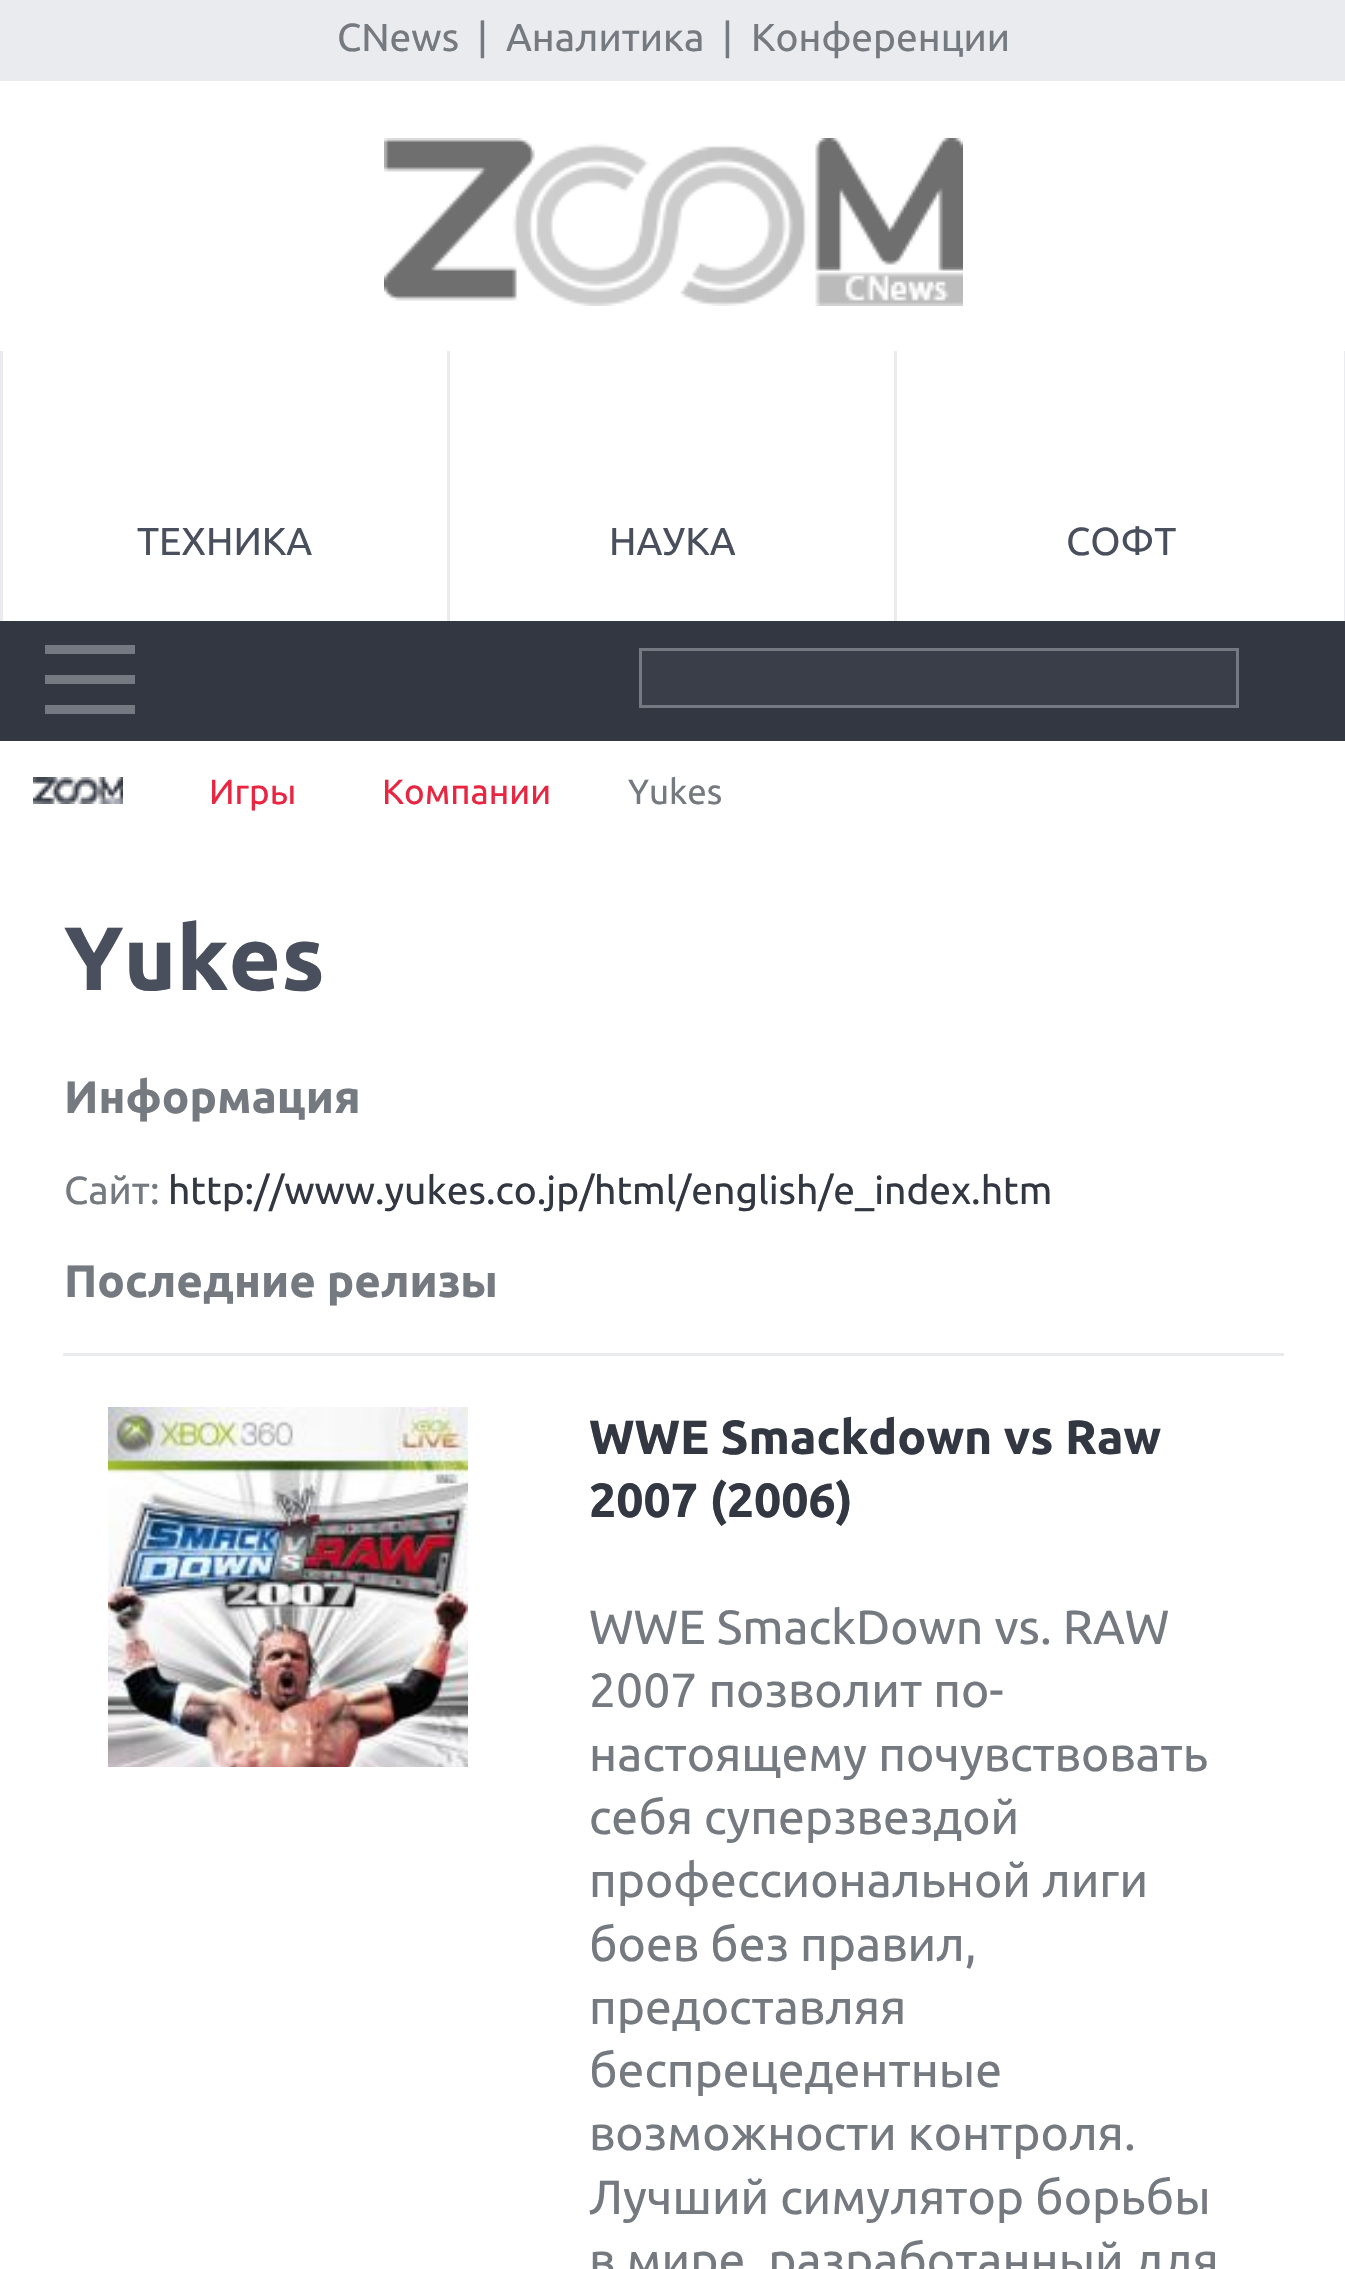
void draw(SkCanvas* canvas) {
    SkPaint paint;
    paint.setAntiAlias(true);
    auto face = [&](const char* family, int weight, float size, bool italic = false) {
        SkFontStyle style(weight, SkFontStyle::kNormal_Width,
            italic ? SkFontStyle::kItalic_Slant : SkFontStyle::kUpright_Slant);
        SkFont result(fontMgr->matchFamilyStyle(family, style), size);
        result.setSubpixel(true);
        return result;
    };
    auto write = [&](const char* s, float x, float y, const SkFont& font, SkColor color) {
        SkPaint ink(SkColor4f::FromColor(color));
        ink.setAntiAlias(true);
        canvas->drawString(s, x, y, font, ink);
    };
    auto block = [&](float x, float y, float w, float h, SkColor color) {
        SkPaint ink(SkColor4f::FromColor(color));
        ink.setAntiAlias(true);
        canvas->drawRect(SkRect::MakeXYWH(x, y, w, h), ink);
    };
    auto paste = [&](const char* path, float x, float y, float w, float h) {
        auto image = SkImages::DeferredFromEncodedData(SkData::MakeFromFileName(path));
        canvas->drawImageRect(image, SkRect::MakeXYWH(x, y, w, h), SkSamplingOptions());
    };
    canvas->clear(SK_ColorWHITE);
    block(0, 0, 1345, 81, SkColorSetRGB(233, 235, 238));
    auto kFont1 = face("Ubuntu", 400, 39);
    write("CNews", 337, 51, kFont1, SkColorSetRGB(117, 121, 128));
    write("|", 477, 51, kFont1, SkColorSetRGB(117, 121, 128));
    write("Аналитика", 506, 51, kFont1, SkColorSetRGB(117, 121, 128));
    write("|", 722, 51, kFont1, SkColorSetRGB(117, 121, 128));
    write("Конференции", 751, 51, kFont1, SkColorSetRGB(117, 121, 128));
    paste("pic1.png", 384, 138, 579, 168);
    block(447, 351, 3, 270, SkColorSetRGB(233, 235, 238));
    block(0, 351, 3, 270, SkColorSetRGB(233, 235, 238));
    write("ТЕХНИКА", 137, 555, kFont1, SkColorSetRGB(73, 79, 92));
    block(894, 351, 3, 270, SkColorSetRGB(233, 235, 238));
    write("НАУКА", 609, 555, kFont1, SkColorSetRGB(73, 79, 92));
    block(1344, 351, 1, 270, SkColorSetRGB(233, 235, 238));
    write("СОФТ", 1066, 555, kFont1, SkColorSetRGB(73, 79, 92));
    block(0, 621, 1345, 120, SkColorSetRGB(50, 55, 66));
    block(45, 645, 90, 9, SkColorSetRGB(117, 121, 129));
    block(45, 675, 90, 9, SkColorSetRGB(117, 121, 129));
    block(45, 705, 90, 9, SkColorSetRGB(117, 121, 129));
    paint.setColor(SkColorSetRGB(57, 62, 73));
    canvas->drawRect(SkRect::MakeXYWH(640.5f, 649.5f, 597, 57), paint);
    paint.setStyle(SkPaint::kStroke_Style);
    paint.setStrokeWidth(3);
    paint.setColor(SkColorSetRGB(117, 121, 129));
    canvas->drawRect(SkRect::MakeXYWH(640.5f, 649.5f, 597, 57), paint);
    paste("pic2.png", 33, 777, 90, 27);
    auto kFont2 = face("Ubuntu", 400, 35);
    write("Игры", 209, 804, kFont2, SkColorSetRGB(232, 38, 66));
    write("Компании", 382, 804, kFont2, SkColorSetRGB(232, 38, 66));
    write("Yukes", 628, 804, kFont2, SkColorSetRGB(117, 121, 128));
    auto kFont3 = face("Ubuntu", 700, 90);
    write("Yukes", 64, 990, kFont3, SkColorSetRGB(73, 79, 92));
    auto kFont4 = face("Ubuntu", 700, 45.6f);
    write("Информация", 64, 1113, kFont4, SkColorSetRGB(117, 121, 128));
    write("Сайт:", 64, 1204, kFont1, SkColorSetRGB(117, 121, 128));
    write("http://www.yukes.co.jp/html/english/e_index.htm", 168, 1204, kFont1, SkColorSetRGB(50, 55, 66));
    write("Последние релизы", 64, 1297, kFont4, SkColorSetRGB(117, 121, 128));
    block(63, 1353, 1221, 3, SkColorSetRGB(233, 235, 238));
    paste("pic3.png", 108, 1407, 360, 360);
    auto kFont5 = face("Ubuntu", 700, 48);
    write("WWE Smackdown vs Raw", 589, 1454, kFont5, SkColorSetRGB(50, 55, 66));
    write("2007 (2006)", 589, 1517, kFont5, SkColorSetRGB(50, 55, 66));
    auto kFont6 = face("Ubuntu", 400, 48);
    write("WWE SmackDown vs. RAW", 589, 1644, kFont6, SkColorSetRGB(117, 121, 128));
    write("2007 позволит по-", 589, 1707, kFont6, SkColorSetRGB(117, 121, 128));
    write("настоящему почувствовать", 589, 1771, kFont6, SkColorSetRGB(117, 121, 128));
    write("себя суперзвездой", 589, 1834, kFont6, SkColorSetRGB(117, 121, 128));
    write("профессиональной лиги", 589, 1897, kFont6, SkColorSetRGB(117, 121, 128));
    write("боев без правил,", 589, 1961, kFont6, SkColorSetRGB(117, 121, 128));
    write("предоставляя", 589, 2024, kFont6, SkColorSetRGB(117, 121, 128));
    write("беспрецедентные", 589, 2087, kFont6, SkColorSetRGB(117, 121, 128));
    write("возможности контроля.", 589, 2150, kFont6, SkColorSetRGB(117, 121, 128));
    write("Лучший симулятор борьбы", 589, 2214, kFont6, SkColorSetRGB(117, 121, 128));
    write("в мире, разработанный для", 589, 2277, kFont6, SkColorSetRGB(117, 121, 128));
}
